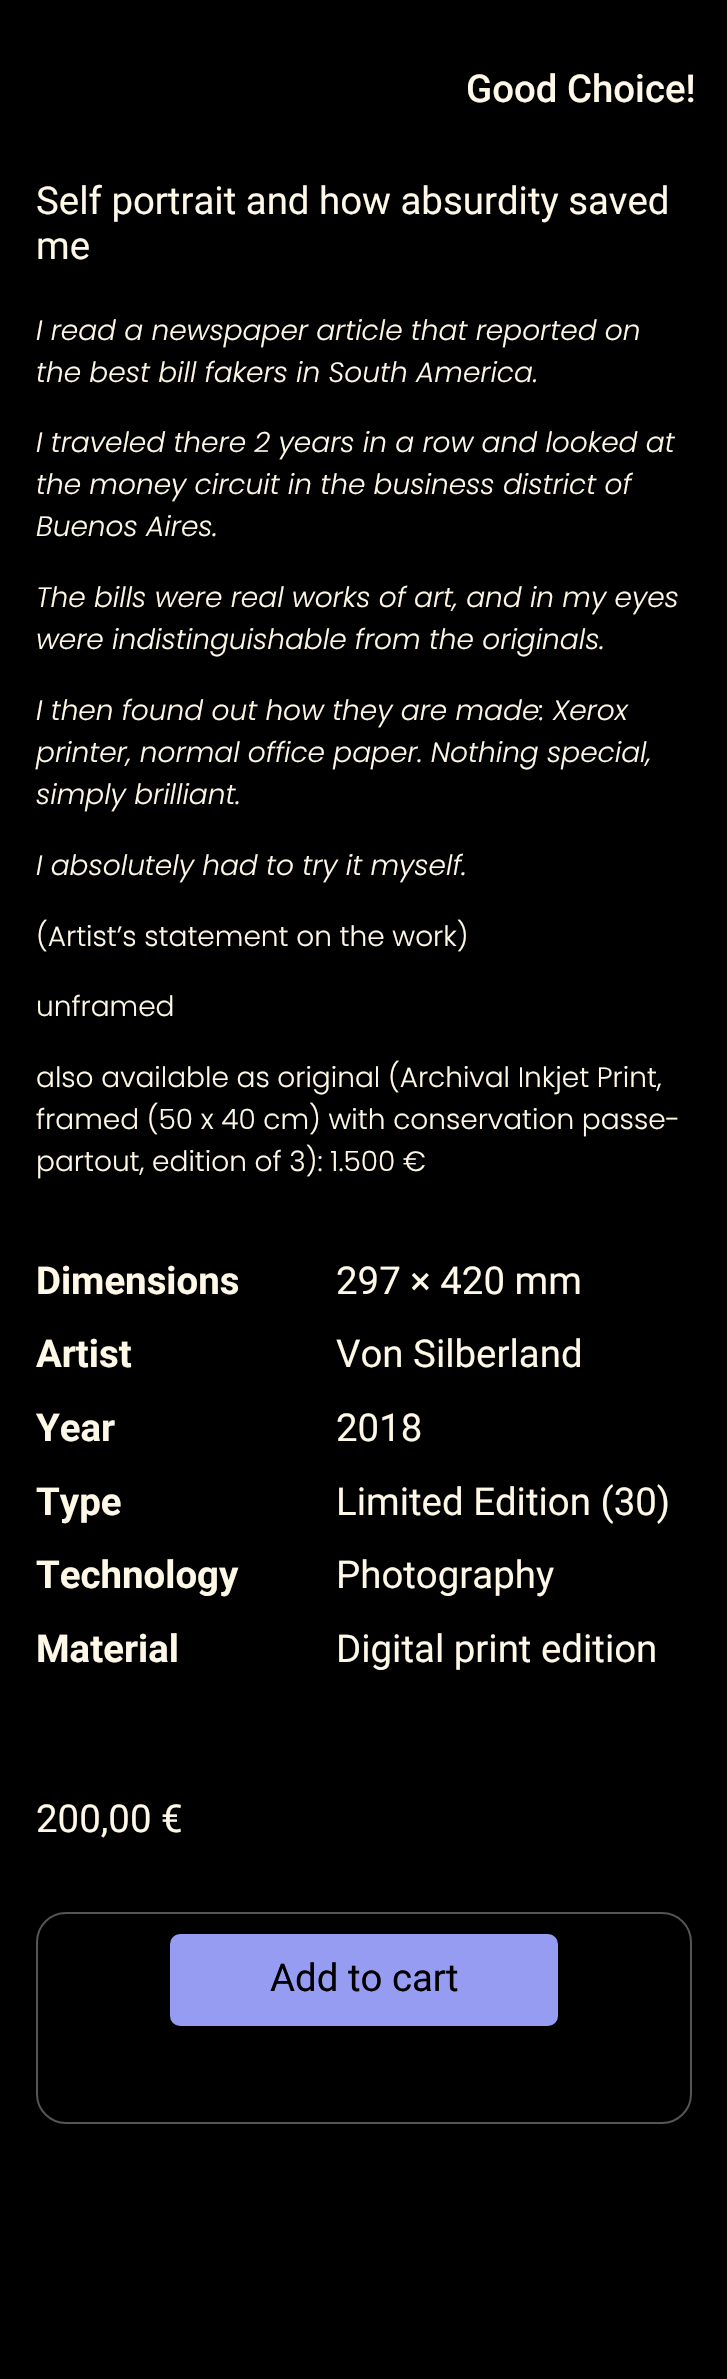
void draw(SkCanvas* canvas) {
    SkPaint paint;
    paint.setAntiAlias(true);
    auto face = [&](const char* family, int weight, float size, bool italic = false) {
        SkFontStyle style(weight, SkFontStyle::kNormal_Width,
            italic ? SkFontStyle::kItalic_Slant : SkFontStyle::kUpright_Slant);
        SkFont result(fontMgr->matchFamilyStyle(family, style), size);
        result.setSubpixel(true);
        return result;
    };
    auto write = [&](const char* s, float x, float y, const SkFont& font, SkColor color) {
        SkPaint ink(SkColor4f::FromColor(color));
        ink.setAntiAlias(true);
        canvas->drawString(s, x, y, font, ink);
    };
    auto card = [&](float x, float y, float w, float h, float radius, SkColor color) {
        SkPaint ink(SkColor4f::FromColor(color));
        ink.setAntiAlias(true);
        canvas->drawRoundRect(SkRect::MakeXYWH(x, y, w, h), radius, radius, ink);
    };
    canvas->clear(SK_ColorBLACK);
    auto kFont1 = face("Roboto", 500, 38.4f);
    write("Good Choice!", 466, 102, kFont1, SkColorSetRGB(255, 248, 231));
    auto kFont2 = face("Roboto", 400, 38.4f);
    write("Self portrait and how absurdity saved", 36, 214, kFont2, SkColorSetRGB(255, 248, 231));
    write("me", 36, 259, kFont2, SkColorSetRGB(255, 248, 231));
    auto kFont3 = face("Poppins", 300, 28, true);
    write("I read a newspaper article that reported on", 36, 340, kFont3, SkColorSetRGB(255, 248, 231));
    write("the best bill fakers in South America.", 36, 382, kFont3, SkColorSetRGB(255, 248, 231));
    write("I traveled there 2 years in a row and looked at", 36, 452, kFont3, SkColorSetRGB(255, 248, 231));
    write("the money circuit in the business district of", 36, 494, kFont3, SkColorSetRGB(255, 248, 231));
    write("Buenos Aires.", 36, 536, kFont3, SkColorSetRGB(255, 248, 231));
    write("The bills were real works of art, and in my eyes", 36, 607, kFont3, SkColorSetRGB(255, 248, 231));
    write("were indistinguishable from the originals.", 36, 649, kFont3, SkColorSetRGB(255, 248, 231));
    write("I then found out how they are made: Xerox", 36, 720, kFont3, SkColorSetRGB(255, 248, 231));
    write("printer, normal office paper. Nothing special,", 36, 762, kFont3, SkColorSetRGB(255, 248, 231));
    write("simply brilliant.", 36, 804, kFont3, SkColorSetRGB(255, 248, 231));
    write("I absolutely had to try it myself.", 36, 875, kFont3, SkColorSetRGB(255, 248, 231));
    auto kFont4 = face("Poppins", 300, 28);
    write("(Artist’s statement on the work)", 36, 946, kFont4, SkColorSetRGB(255, 248, 231));
    write("unframed", 36, 1016, kFont4, SkColorSetRGB(255, 248, 231));
    write("also available as original (Archival Inkjet Print,", 36, 1087, kFont4, SkColorSetRGB(255, 248, 231));
    write("framed (50 x 40 cm) with conservation passe-", 36, 1129, kFont4, SkColorSetRGB(255, 248, 231));
    write("partout, edition of 3): 1.500 €", 36, 1171, kFont4, SkColorSetRGB(255, 248, 231));
    auto kFont5 = face("Roboto", 700, 38.4f);
    write("Dimensions", 36, 1294, kFont5, SkColorSetRGB(255, 248, 231));
    write("297 × 420 mm", 336, 1294, kFont2, SkColorSetRGB(255, 248, 231));
    write("Artist", 36, 1367, kFont5, SkColorSetRGB(255, 248, 231));
    write("Von Silberland", 336, 1367, kFont2, SkColorSetRGB(255, 248, 231));
    write("Year", 36, 1441, kFont5, SkColorSetRGB(255, 248, 231));
    write("2018", 336, 1441, kFont2, SkColorSetRGB(255, 248, 231));
    write("Type", 36, 1515, kFont5, SkColorSetRGB(255, 248, 231));
    write("Limited Edition (30)", 336, 1515, kFont2, SkColorSetRGB(255, 248, 231));
    write("Technology", 36, 1588, kFont5, SkColorSetRGB(255, 248, 231));
    write("Photography", 336, 1588, kFont2, SkColorSetRGB(255, 248, 231));
    write("Material", 36, 1662, kFont5, SkColorSetRGB(255, 248, 231));
    write("Digital print edition", 336, 1662, kFont2, SkColorSetRGB(255, 248, 231));
    write("200,00 €", 36, 1832, kFont2, SkColorSetRGB(255, 248, 231));
    paint.setStyle(SkPaint::kStroke_Style);
    paint.setStrokeWidth(2);
    paint.setColor(SkColorSetRGB(85, 85, 85));
    canvas->drawRoundRect(SkRect::MakeXYWH(37, 1913, 654, 210), 29, 29, paint);
    card(170, 1934, 388, 92, 10, SkColorSetRGB(150, 156, 242));
    write("Add to cart", 270, 1991, kFont2, SK_ColorBLACK);
}
